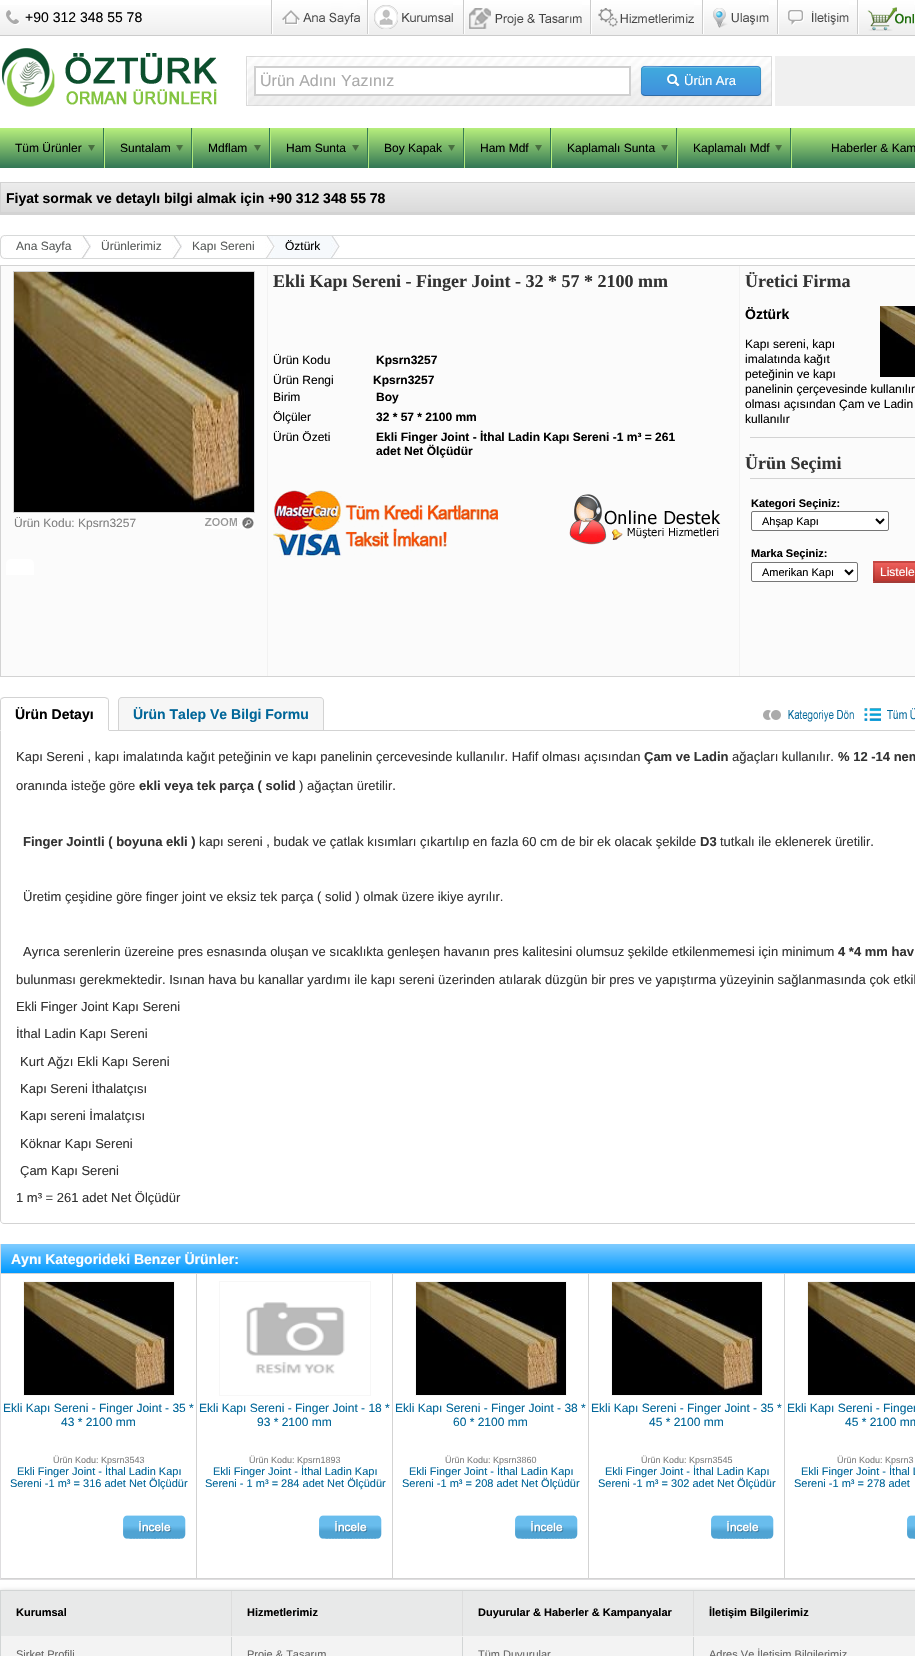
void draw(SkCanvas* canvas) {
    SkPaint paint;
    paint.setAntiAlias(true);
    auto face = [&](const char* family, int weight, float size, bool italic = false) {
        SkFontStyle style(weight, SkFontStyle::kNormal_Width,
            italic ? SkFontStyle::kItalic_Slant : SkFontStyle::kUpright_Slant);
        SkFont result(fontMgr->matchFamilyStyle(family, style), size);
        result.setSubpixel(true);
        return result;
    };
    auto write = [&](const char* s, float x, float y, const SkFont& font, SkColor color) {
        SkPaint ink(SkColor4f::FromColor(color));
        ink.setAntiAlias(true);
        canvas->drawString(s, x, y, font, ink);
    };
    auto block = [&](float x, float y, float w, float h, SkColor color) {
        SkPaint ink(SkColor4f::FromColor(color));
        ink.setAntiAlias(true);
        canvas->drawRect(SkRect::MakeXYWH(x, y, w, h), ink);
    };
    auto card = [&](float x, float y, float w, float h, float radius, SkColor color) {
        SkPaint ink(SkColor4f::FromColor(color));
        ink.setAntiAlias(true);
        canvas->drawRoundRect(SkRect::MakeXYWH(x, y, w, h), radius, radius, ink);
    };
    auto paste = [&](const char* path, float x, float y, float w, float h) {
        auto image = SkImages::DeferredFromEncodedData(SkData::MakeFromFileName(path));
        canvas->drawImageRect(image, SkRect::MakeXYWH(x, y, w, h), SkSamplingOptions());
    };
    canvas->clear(SK_ColorWHITE);
    {
        const SkColor colors[] = {SK_ColorWHITE, SkColorSetRGB(238, 238, 238)};
        const float stops[] = {0, 1};
        const SkPoint ends[] = {{458, 0}, {458, 35}};
        paint.setShader(SkGradientShader::MakeLinear(ends, colors, stops, 2, SkTileMode::kClamp));
        paint.setAlpha(255);
    }
    canvas->drawRect(SkRect::MakeXYWH(0, 5, 915, 30), paint);
    block(0, 35, 915, 1, SkColorSetRGB(204, 204, 204));
    paste("pic1.png", 6, 10, 14, 15);
    auto kFont1 = face("Liberation Sans", 400, 14);
    write("+90 312 348 55 78", 25, 22, kFont1, SK_ColorBLACK);
    paste("pic2.png", 271, 0, 89, 34);
    paste("pic3.png", 367, 0, 86, 34);
    paste("pic4.png", 463, 0, 119, 34);
    paste("pic5.png", 590, 0, 104, 34);
    paste("pic6.png", 702, 0, 67, 34);
    paste("pic7.png", 777, 0, 72, 34);
    paste("pic8.png", 857, 0, 57, 34);
    paste("pic9.png", 2, 48, 215, 59);
    paste("pic10.png", 246, 56, 526, 50);
    paint.setShader(nullptr);
    paint.setColor(SK_ColorWHITE);
    canvas->drawRect(SkRect::MakeXYWH(255, 67, 375, 28), paint);
    paint.setStyle(SkPaint::kStroke_Style);
    paint.setStrokeWidth(2);
    paint.setColor(SkColorSetRGB(208, 208, 208));
    canvas->drawRect(SkRect::MakeXYWH(255, 67, 375, 28), paint);
    auto kFont2 = face("Liberation Sans", 400, 16);
    write("Ürün Adını Yazınız", 260, 86, kFont2, SkColorSetRGB(170, 170, 170));
    paint.setStyle(SkPaint::kFill_Style);
    paint.setColor(SkColorSetARGB(13, 0, 0, 0));
    paint.setMaskFilter(SkMaskFilter::MakeBlur(kNormal_SkBlurStyle, 1));
    canvas->drawRoundRect(SkRect::MakeXYWH(641, 67, 120, 30), 4, 4, paint);
    paint.setMaskFilter(nullptr);
    card(641, 66, 120, 30, 4, SkColorSetRGB(64, 144, 221));
    canvas->save();
    canvas->clipPath(SkPathBuilder().moveTo(645, 66).lineTo(757, 66).cubicTo(759, 66, 761, 68, 761, 70).lineTo(761, 92).cubicTo(761, 94, 759, 96, 757, 96).lineTo(645, 96).cubicTo(643, 96, 641, 94, 641, 92).lineTo(641, 70).cubicTo(641, 68, 643, 66, 645, 66).close().detach(), true);
    {
        const SkColor colors[] = {SkColorSetRGB(64, 170, 221), SkColorSetRGB(64, 144, 221)};
        const float stops[] = {0, 1};
        const SkPoint ends[] = {{701, 67}, {701, 95}};
        paint.setShader(SkGradientShader::MakeLinear(ends, colors, stops, 2, SkTileMode::kClamp));
        paint.setAlpha(255);
    }
    canvas->drawRect(SkRect::MakeXYWH(641, 67, 120, 28), paint);
    canvas->restore();
    paint.setShader(nullptr);
    paint.setColor(SkColorSetARGB(51, 255, 255, 255));
    canvas->drawPath(SkPathBuilder().moveTo(645, 68).lineTo(757, 68).cubicTo(759, 68, 760, 69, 760, 71).cubicTo(760, 69, 759, 67, 757, 67).lineTo(664, 67).cubicTo(662, 67, 642, 62, 642, 71).cubicTo(642, 69, 643, 68, 645, 68).close().detach(), paint);
    paint.setStyle(SkPaint::kStroke_Style);
    paint.setStrokeWidth(1);
    paint.setColor(SkColorSetARGB(64, 0, 0, 0));
    canvas->drawPath(SkPathBuilder().moveTo(759.5f, 94.5f).lineTo(757.5f, 95.5f).lineTo(663.5f, 95.5f).lineTo(645, 95.5f).lineTo(642.5f, 94.5f).detach(), paint);
    paint.setColor(SkColorSetARGB(26, 0, 0, 0));
    canvas->drawPath(SkPathBuilder().moveTo(642.5f, 94.5f).cubicTo(640, 92, 641.5f, 87.5f, 641.5f, 84.5f).cubicTo(641.5f, 62, 638, 66.5f, 663.5f, 66.5f).lineTo(738.5f, 66.5f).cubicTo(764, 66.5f, 760.5f, 62, 760.5f, 84.5f).cubicTo(760.5f, 87.5f, 762, 92, 759.5f, 94.5f).detach(), paint);
    paste("pic11.png", 667, 74, 13, 13);
    auto kFont3 = face("Liberation Sans", 400, 13);
    write("Ürün Ara", 684, 85, kFont3, SK_ColorWHITE);
    block(775, 56, 140, 50, SkColorSetRGB(240, 240, 240));
    paint.setStyle(SkPaint::kFill_Style);
    {
        const SkColor colors[] = {SkColorSetRGB(183, 238, 125), SkColorSetRGB(50, 118, 84)};
        const float stops[] = {0, 1};
        const SkPoint ends[] = {{492, 128}, {492, 168}};
        paint.setShader(SkGradientShader::MakeLinear(ends, colors, stops, 2, SkTileMode::kClamp));
        paint.setAlpha(255);
    }
    canvas->drawRect(SkRect::MakeXYWH(0, 128, 915, 40), paint);
    paste("pic12.png", 103, 128, 2, 40);
    paste("pic13.png", 88, 145, 7, 6);
    auto kFont4 = face("Liberation Sans", 400, 12);
    write("Tüm Ürünler", 15, 152, kFont4, SK_ColorBLACK);
    paste("pic14.png", 191, 128, 2, 40);
    paste("pic15.png", 176, 145, 8, 6);
    write("Suntalam", 120, 152, kFont4, SK_ColorBLACK);
    paste("pic12.png", 269, 128, 2, 40);
    paste("pic16.png", 253, 145, 8, 6);
    write("Mdflam", 208, 152, kFont4, SK_ColorBLACK);
    paste("pic14.png", 367, 128, 2, 40);
    paste("pic17.png", 352, 145, 7, 6);
    write("Ham Sunta", 286, 152, kFont4, SK_ColorBLACK);
    paste("pic14.png", 463, 128, 2, 40);
    paste("pic17.png", 448, 145, 7, 6);
    write("Boy Kapak", 384, 152, kFont4, SK_ColorBLACK);
    paste("pic12.png", 550, 128, 2, 40);
    paste("pic13.png", 535, 145, 7, 6);
    write("Ham Mdf", 480, 152, kFont4, SK_ColorBLACK);
    paste("pic14.png", 676, 128, 2, 40);
    paste("pic17.png", 661, 145, 7, 6);
    write("Kaplamalı Sunta", 567, 152, kFont4, SK_ColorBLACK);
    paste("pic14.png", 790, 128, 2, 40);
    paste("pic18.png", 775, 145, 7, 6);
    write("Kaplamalı Mdf", 693, 152, kFont4, SK_ColorBLACK);
    write("Haberler & Kam", 831, 152, kFont4, SK_ColorBLACK);
    paint.setStyle(SkPaint::kStroke_Style);
    paint.setShader(nullptr);
    paint.setColor(SkColorSetRGB(211, 211, 211));
    canvas->drawRect(SkRect::MakeXYWH(0.5f, 182.5f, 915, 30), paint);
    paint.setStyle(SkPaint::kFill_Style);
    {
        const SkColor colors[] = {SkColorSetRGB(236, 236, 236), SkColorSetRGB(218, 218, 218)};
        const float stops[] = {0, 1};
        const SkPoint ends[] = {{1, 183}, {1, 212}};
        paint.setShader(SkGradientShader::MakeLinear(ends, colors, stops, 2, SkTileMode::kClamp));
        paint.setAlpha(255);
    }
    canvas->drawRect(SkRect::MakeXYWH(1, 183, 914, 29), paint);
    auto kFont5 = face("Liberation Sans", 700, 14);
    write("Fiyat sormak ve detaylı bilgi almak için +90 312 348 55 78", 6, 203, kFont5, SK_ColorBLACK);
    block(0, 213, 915, 2, SkColorSetRGB(211, 211, 211));
    paste("pic19.png", 0, 235, 6, 24);
    block(6, 235, 909, 1, SkColorSetRGB(215, 217, 217));
    block(6, 258, 909, 1, SkColorSetRGB(215, 217, 217));
    write("Ana Sayfa", 16, 250, kFont4, SkColorSetRGB(89, 92, 91));
    paste("pic20.png", 81, 236, 10, 22);
    write("Ürünlerimiz", 101, 250, kFont4, SkColorSetRGB(89, 92, 91));
    paste("pic20.png", 172, 236, 10, 22);
    write("Kapı Sereni", 192, 250, kFont4, SkColorSetRGB(89, 92, 91));
    paste("pic21.png", 265, 236, 10, 22);
    block(275, 236, 55, 22, SkColorSetRGB(246, 249, 252));
    write("Öztürk", 285, 250, kFont4, SK_ColorBLACK);
    paste("pic22.png", 330, 236, 10, 22);
    paint.setShader(nullptr);
    paint.setColor(SkColorSetRGB(251, 251, 251));
    canvas->drawRect(SkRect::MakeXYWH(0.5f, 265.5f, 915, 411), paint);
    paint.setStyle(SkPaint::kStroke_Style);
    paint.setColor(SkColorSetRGB(211, 211, 211));
    canvas->drawRect(SkRect::MakeXYWH(0.5f, 265.5f, 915, 411), paint);
    block(267, 266, 1, 410, SkColorSetRGB(242, 242, 242));
    auto kFont6 = face("Liberation Serif", 700, 18);
    write("Ekli Kapı Sereni - Finger Joint - 32 * 57 * 2100 mm", 273, 287, kFont6, SkColorSetRGB(51, 51, 51));
    write("Ürün Kodu", 273, 364, kFont4, SK_ColorBLACK);
    auto kFont7 = face("Liberation Sans", 700, 12);
    write("Kpsrn3257", 376, 364, kFont7, SK_ColorBLACK);
    write("Ürün Rengi", 273, 384, kFont4, SK_ColorBLACK);
    write("Kpsrn3257", 373, 384, kFont7, SK_ColorBLACK);
    write("Birim", 273, 401, kFont4, SK_ColorBLACK);
    write("Boy", 376, 401, kFont7, SK_ColorBLACK);
    write("Ölçüler", 273, 421, kFont4, SK_ColorBLACK);
    write("32 * 57 * 2100 mm", 376, 421, kFont7, SK_ColorBLACK);
    write("Ürün Özeti", 273, 441, kFont4, SK_ColorBLACK);
    write("Ekli Finger Joint - İthal Ladin Kapı Sereni -1 m³ = 261", 376, 441, kFont7, SK_ColorBLACK);
    write("adet Net Ölçüdür", 376, 455, kFont7, SK_ColorBLACK);
    paste("pic23.png", 273, 490, 225, 67);
    paste("pic24.png", 569, 494, 152, 51);
    block(739, 266, 1, 410, SkColorSetRGB(242, 242, 242));
    write("Üretici Firma", 745, 287, kFont6, SkColorSetRGB(51, 51, 51));
    write("Öztürk", 745, 319, kFont5, SK_ColorBLACK);
    paste("pic25.png", 880, 306, 35, 71);
    write("Kapı sereni, kapı", 745, 348, kFont4, SK_ColorBLACK);
    write("imalatında kağıt", 745, 363, kFont4, SK_ColorBLACK);
    write("peteğinin ve kapı", 745, 378, kFont4, SK_ColorBLACK);
    write("panelinin çerçevesinde kullanılır", 745, 393, kFont4, SK_ColorBLACK);
    write("olması açısından Çam ve Ladin", 745, 408, kFont4, SK_ColorBLACK);
    write("kullanılır", 745, 423, kFont4, SK_ColorBLACK);
    block(750, 437, 165, 1, SkColorSetRGB(211, 211, 211));
    write("Ürün Seçimi", 745, 469, kFont6, SkColorSetRGB(51, 51, 51));
    block(750, 478, 165, 1, SkColorSetRGB(211, 211, 211));
    auto kFont8 = face("Liberation Sans", 700, 11);
    write("Kategori Seçiniz:", 751, 507, kFont8, SK_ColorBLACK);
    paint.setStyle(SkPaint::kFill_Style);
    paint.setColor(SK_ColorWHITE);
    canvas->drawRoundRect(SkRect::MakeXYWH(751.5f, 511.5f, 137, 19), 1.5f, 1.5f, paint);
    paint.setStyle(SkPaint::kStroke_Style);
    paint.setColor(SkColorSetRGB(118, 118, 118));
    canvas->drawRoundRect(SkRect::MakeXYWH(751.5f, 511.5f, 137, 19), 1.5f, 1.5f, paint);
    paint.setStrokeWidth(2);
    paint.setColor(SK_ColorBLACK);
    canvas->drawPath(SkPathBuilder().moveTo(876, 519).lineTo(880, 523).lineTo(884, 519).detach(), paint);
    auto kFont9 = face("Liberation Sans", 400, 11);
    write("Ahşap Kapı", 762, 525, kFont9, SK_ColorBLACK);
    write("Marka Seçiniz:", 751, 557, kFont8, SK_ColorBLACK);
    paint.setStyle(SkPaint::kFill_Style);
    paint.setColor(SK_ColorWHITE);
    canvas->drawRoundRect(SkRect::MakeXYWH(751.5f, 562.5f, 106, 19), 1.5f, 1.5f, paint);
    paint.setStyle(SkPaint::kStroke_Style);
    paint.setStrokeWidth(1);
    paint.setColor(SkColorSetRGB(118, 118, 118));
    canvas->drawRoundRect(SkRect::MakeXYWH(751.5f, 562.5f, 106, 19), 1.5f, 1.5f, paint);
    paint.setStrokeWidth(2);
    paint.setColor(SK_ColorBLACK);
    canvas->drawPath(SkPathBuilder().moveTo(845, 570).lineTo(849, 574).lineTo(853, 570).detach(), paint);
    write("Amerikan Kapı", 762, 576, kFont9, SK_ColorBLACK);
    block(873, 561, 2, 22, SkColorSetRGB(218, 79, 73));
    paint.setStyle(SkPaint::kFill_Style);
    {
        const SkColor colors[] = {SkColorSetRGB(238, 95, 91), SkColorSetRGB(189, 54, 47)};
        const float stops[] = {0, 1};
        const SkPoint ends[] = {{898, 563}, {898, 581}};
        paint.setShader(SkGradientShader::MakeLinear(ends, colors, stops, 2, SkTileMode::kClamp));
        paint.setAlpha(255);
    }
    canvas->drawRect(SkRect::MakeXYWH(873, 563, 42, 18), paint);
    paint.setShader(nullptr);
    paint.setColor(SkColorSetRGB(196, 71, 66));
    canvas->drawPath(SkPathBuilder().moveTo(873, 561).lineTo(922, 561).lineTo(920, 563).lineTo(875, 563).close().detach(), paint);
    paint.setColor(SkColorSetRGB(164, 59, 55));
    canvas->drawPath(SkPathBuilder().moveTo(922, 583).lineTo(873, 583).lineTo(875, 581).lineTo(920, 581).close().detach(), paint);
    paint.setColor(SkColorSetARGB(26, 0, 0, 0));
    canvas->drawPath(SkPathBuilder().moveTo(873, 583).lineTo(873, 561).lineTo(875, 563).lineTo(875, 581).close().detach(), paint);
    write("Listele", 880, 576, kFont4, SK_ColorWHITE);
    paint.setStyle(SkPaint::kStroke_Style);
    paint.setStrokeWidth(1);
    paint.setColor(SkColorSetRGB(211, 211, 211));
    canvas->drawRect(SkRect::MakeXYWH(13.5f, 271.5f, 241, 241), paint);
    paste("pic26.png", 14, 272, 240, 240);
    write("Ürün Kodu: Kpsrn3257", 14, 527, kFont4, SkColorSetRGB(128, 128, 128));
    paste("pic27.png", 205, 517, 49, 12);
    paint.setStyle(SkPaint::kFill_Style);
    paint.setColor(SK_ColorWHITE);
    canvas->drawPath(SkPathBuilder().moveTo(11, 559).lineTo(29, 559).cubicTo(32, 559, 34, 561, 34, 564).lineTo(34, 575).lineTo(6, 575).lineTo(6, 564).cubicTo(6, 561, 8, 559, 11, 559).close().detach(), paint);
    paint.setStyle(SkPaint::kStroke_Style);
    paint.setColor(SkColorSetRGB(211, 211, 211));
    canvas->drawPath(SkPathBuilder().moveTo(0.5f, 730.5f).lineTo(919.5f, 730.5f).lineTo(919.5f, 1220).cubicTo(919.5f, 1222, 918, 1223.5f, 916, 1223.5f).lineTo(4, 1223.5f).cubicTo(2, 1223.5f, 0.5f, 1222, 0.5f, 1220).close().detach(), paint);
    paint.setStyle(SkPaint::kFill_Style);
    paint.setColor(SK_ColorWHITE);
    canvas->drawPath(SkPathBuilder().moveTo(4, 697).lineTo(105, 697).cubicTo(107, 697, 109, 699, 109, 701).lineTo(109, 731).lineTo(0, 731).lineTo(0, 701).cubicTo(0, 699, 2, 697, 4, 697).close().detach(), paint);
    paint.setColor(SkColorSetRGB(211, 211, 211));
    canvas->drawPath(SkPathBuilder().moveTo(4, 697).lineTo(1, 698).lineTo(2, 699).lineTo(4, 698).lineTo(105, 698).lineTo(107, 699).lineTo(108, 698).lineTo(105, 697).close().detach(), paint);
    canvas->drawPath(SkPathBuilder().moveTo(109, 731).lineTo(109, 701).cubicTo(109, 700, 108.5f, 699, 108, 698).lineTo(107, 699).cubicTo(108, 699, 108, 700, 108, 701).lineTo(108, 730).close().detach(), paint);
    paint.setColor(SK_ColorWHITE);
    canvas->drawPath(SkPathBuilder().moveTo(109, 731).lineTo(108, 730).lineTo(1, 730).lineTo(0, 731).close().detach(), paint);
    paint.setColor(SkColorSetRGB(211, 211, 211));
    canvas->drawPath(SkPathBuilder().moveTo(0, 731).lineTo(1, 730).lineTo(1, 701).cubicTo(1, 700, 1, 699, 2, 699).lineTo(1, 698).cubicTo(0.5f, 699, 0, 700, 0, 701).close().detach(), paint);
    write("Ürün Detayı", 15, 719, kFont5, SK_ColorBLACK);
    paint.setColor(SkColorSetRGB(246, 246, 246));
    canvas->drawPath(SkPathBuilder().moveTo(122, 697).lineTo(320, 697).cubicTo(322, 697, 324, 699, 324, 701).lineTo(324, 730).lineTo(118, 730).lineTo(118, 701).cubicTo(118, 699, 120, 697, 122, 697).close().detach(), paint);
    paint.setColor(SkColorSetRGB(211, 211, 211));
    canvas->drawPath(SkPathBuilder(SkPathFillType::kEvenOdd).moveTo(122, 697).lineTo(320, 697).cubicTo(322, 697, 324, 699, 324, 701).lineTo(324, 730).lineTo(118, 730).lineTo(118, 701).cubicTo(118, 699, 120, 697, 122, 697).close().moveTo(122, 698).lineTo(320, 698).cubicTo(322, 698, 323, 699, 323, 701).lineTo(323, 730).lineTo(119, 730).lineTo(119, 701).cubicTo(119, 699, 120, 698, 122, 698).close().detach(), paint);
    write("Ürün Talep Ve Bilgi Formu", 133, 719, kFont5, SkColorSetRGB(0, 102, 153));
    paste("pic28.png", 763, 710, 91, 12);
    paste("pic29.png", 864, 708, 51, 13);
    write("Kapı Sereni , kapı imalatında kağıt peteğinin ve kapı panelinin çercevesinde kullanılır. Hafif olması açısından", 16, 761, kFont3, SkColorSetRGB(51, 51, 51));
    auto kFont10 = face("Liberation Sans", 700, 13);
    write("Çam ve Ladin", 644, 761, kFont10, SkColorSetRGB(51, 51, 51));
    write("ağaçları kullanılır.", 732, 761, kFont3, SkColorSetRGB(51, 51, 51));
    write("% 12 -14 nem", 838, 761, kFont10, SkColorSetRGB(51, 51, 51));
    write("oranında isteğe göre", 16, 790, kFont3, SkColorSetRGB(51, 51, 51));
    write("ekli veya tek parça ( solid", 139, 790, kFont10, SkColorSetRGB(51, 51, 51));
    write(") ağaçtan üretilir.", 299, 790, kFont3, SkColorSetRGB(51, 51, 51));
    write("Finger Jointli ( boyuna ekli )", 23, 846, kFont10, SkColorSetRGB(51, 51, 51));
    write("kapı sereni , budak ve çatlak kısımları çıkartılıp en fazla 60 cm de bir ek olacak şekilde", 199, 846, kFont3, SkColorSetRGB(51, 51, 51));
    write("D3", 700, 846, kFont10, SkColorSetRGB(51, 51, 51));
    write("tutkalı ile eklenerek üretilir.", 720, 846, kFont3, SkColorSetRGB(51, 51, 51));
    write("Üretim çeşidine göre finger joint ve eksiz tek parça ( solid ) olmak üzere ikiye ayrılır.", 23, 901, kFont3, SkColorSetRGB(51, 51, 51));
    write("Ayrıca serenlerin üzereine pres esnasında oluşan ve sıcaklıkta genleşen havanın pres kalitesini olumsuz şekilde etkilenmemesi için minimum", 23, 956, kFont3, SkColorSetRGB(51, 51, 51));
    write("4 *4 mm hav", 838, 956, kFont10, SkColorSetRGB(51, 51, 51));
    write("bulunması gerekmektedir. Isınan hava bu kanallar yardımı ile kapı sereni üzerinden atılarak düzgün bir pres ve yapıştırma yüzeyinin sağlanmasında çok etkil", 16, 984, kFont3, SkColorSetRGB(51, 51, 51));
    write("Ekli Finger Joint Kapı Sereni", 16, 1011, kFont3, SkColorSetRGB(51, 51, 51));
    write("İthal Ladin Kapı Sereni", 16, 1038, kFont3, SkColorSetRGB(51, 51, 51));
    write("Kurt Ağzı Ekli Kapı Sereni", 20, 1066, kFont3, SkColorSetRGB(51, 51, 51));
    write("Kapı Sereni İthalatçısı", 20, 1093, kFont3, SkColorSetRGB(51, 51, 51));
    write("Kapı sereni İmalatçısı", 20, 1120, kFont3, SkColorSetRGB(51, 51, 51));
    write("Köknar Kapı Sereni", 20, 1148, kFont3, SkColorSetRGB(51, 51, 51));
    write("Çam Kapı Sereni", 20, 1175, kFont3, SkColorSetRGB(51, 51, 51));
    write("1 m³ = 261 adet Net Ölçüdür", 16, 1202, kFont3, SkColorSetRGB(51, 51, 51));
    block(0, 1579, 915, 1, SkColorSetRGB(222, 221, 223));
    block(0, 1244, 1, 336, SkColorSetRGB(222, 221, 223));
    {
        const SkColor colors[] = {SkColorSetRGB(128, 204, 255), SkColorSetRGB(0, 153, 255)};
        const float stops[] = {0, 1};
        const SkPoint ends[] = {{1, 1244}, {1, 1273}};
        paint.setShader(SkGradientShader::MakeLinear(ends, colors, stops, 2, SkTileMode::kClamp));
        paint.setAlpha(255);
    }
    canvas->drawRect(SkRect::MakeXYWH(1, 1244, 914, 29), paint);
    write("Aynı Kategorideki Benzer Ürünler:", 11, 1264, kFont5, SK_ColorWHITE);
    block(1, 1273, 914, 1, SkColorSetRGB(211, 211, 211));
    block(196, 1274, 1, 305, SkColorSetRGB(211, 211, 211));
    block(1, 1578, 196, 1, SkColorSetRGB(211, 211, 211));
    paint.setStyle(SkPaint::kStroke_Style);
    paint.setShader(nullptr);
    paint.setColor(SkColorSetRGB(247, 247, 247));
    canvas->drawRect(SkRect::MakeXYWH(23.5f, 1281.5f, 151, 114), paint);
    paste("pic30.png", 24, 1282, 150, 113);
    write("Ekli Kapı Sereni - Finger Joint - 35 *", 3, 1412, kFont4, SkColorSetRGB(0, 102, 153));
    write("43 * 2100 mm", 61, 1426, kFont4, SkColorSetRGB(0, 102, 153));
    auto kFont11 = face("Liberation Sans", 400, 9);
    write("Ürün Kodu: Kpsrn3543", 53, 1463, kFont11, SkColorSetRGB(128, 128, 128));
    write("Ekli Finger Joint - İthal Ladin Kapı", 17, 1475, kFont9, SkColorSetRGB(0, 102, 153));
    write("Sereni -1 m³ = 316 adet Net Ölçüdür", 10, 1487, kFont9, SkColorSetRGB(0, 102, 153));
    paste("pic31.png", 123, 1515, 63, 24);
    block(392, 1274, 1, 305, SkColorSetRGB(211, 211, 211));
    block(197, 1578, 196, 1, SkColorSetRGB(211, 211, 211));
    canvas->drawRect(SkRect::MakeXYWH(219.5f, 1281.5f, 151, 114), paint);
    paste("pic32.png", 246, 1302, 99, 72);
    write("Ekli Kapı Sereni - Finger Joint - 18 *", 199, 1412, kFont4, SkColorSetRGB(0, 102, 153));
    write("93 * 2100 mm", 257, 1426, kFont4, SkColorSetRGB(0, 102, 153));
    write("Ürün Kodu: Kpsrn1893", 249, 1463, kFont11, SkColorSetRGB(128, 128, 128));
    write("Ekli Finger Joint - İthal Ladin Kapı", 213, 1475, kFont9, SkColorSetRGB(0, 102, 153));
    write("Sereni - 1 m³ = 284 adet Net Ölçüdür", 205, 1487, kFont9, SkColorSetRGB(0, 102, 153));
    paste("pic31.png", 319, 1515, 63, 24);
    block(588, 1274, 1, 305, SkColorSetRGB(211, 211, 211));
    block(393, 1578, 196, 1, SkColorSetRGB(211, 211, 211));
    canvas->drawRect(SkRect::MakeXYWH(415.5f, 1281.5f, 151, 114), paint);
    paste("pic30.png", 416, 1282, 150, 113);
    write("Ekli Kapı Sereni - Finger Joint - 38 *", 395, 1412, kFont4, SkColorSetRGB(0, 102, 153));
    write("60 * 2100 mm", 453, 1426, kFont4, SkColorSetRGB(0, 102, 153));
    write("Ürün Kodu: Kpsrn3860", 445, 1463, kFont11, SkColorSetRGB(128, 128, 128));
    write("Ekli Finger Joint - İthal Ladin Kapı", 409, 1475, kFont9, SkColorSetRGB(0, 102, 153));
    write("Sereni -1 m³ = 208 adet Net Ölçüdür", 402, 1487, kFont9, SkColorSetRGB(0, 102, 153));
    paste("pic31.png", 515, 1515, 63, 24);
    block(784, 1274, 1, 305, SkColorSetRGB(211, 211, 211));
    block(589, 1578, 326, 1, SkColorSetRGB(211, 211, 211));
    canvas->drawRect(SkRect::MakeXYWH(611.5f, 1281.5f, 151, 114), paint);
    paste("pic30.png", 612, 1282, 150, 113);
    write("Ekli Kapı Sereni - Finger Joint - 35 *", 591, 1412, kFont4, SkColorSetRGB(0, 102, 153));
    write("45 * 2100 mm", 649, 1426, kFont4, SkColorSetRGB(0, 102, 153));
    write("Ürün Kodu: Kpsrn3545", 641, 1463, kFont11, SkColorSetRGB(128, 128, 128));
    write("Ekli Finger Joint - İthal Ladin Kapı", 605, 1475, kFont9, SkColorSetRGB(0, 102, 153));
    write("Sereni -1 m³ = 302 adet Net Ölçüdür", 598, 1487, kFont9, SkColorSetRGB(0, 102, 153));
    paste("pic31.png", 711, 1515, 63, 24);
    canvas->drawRect(SkRect::MakeXYWH(807.5f, 1281.5f, 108, 114), paint);
    paste("pic33.png", 808, 1282, 107, 113);
    write("Ekli Kapı Sereni - Finger", 787, 1412, kFont4, SkColorSetRGB(0, 102, 153));
    write("45 * 2100 mm", 845, 1426, kFont4, SkColorSetRGB(0, 102, 153));
    write("Ürün Kodu: Kpsrn3", 837, 1463, kFont11, SkColorSetRGB(128, 128, 128));
    write("Ekli Finger Joint - İthal L", 801, 1475, kFont9, SkColorSetRGB(0, 102, 153));
    write("Sereni -1 m³ = 278 adet", 794, 1487, kFont9, SkColorSetRGB(0, 102, 153));
    paste("pic34.png", 907, 1515, 8, 24);
    paint.setStyle(SkPaint::kFill_Style);
    paint.setColor(SkColorSetARGB(51, 0, 0, 0));
    paint.setMaskFilter(SkMaskFilter::MakeBlur(kNormal_SkBlurStyle, 2.5f));
    canvas->drawRect(SkRect::MakeXYWH(0, 1591, 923, 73), paint);
    paint.setMaskFilter(nullptr);
    block(1, 1636, 914, 20, SkColorSetRGB(243, 243, 243));
    paint.setStyle(SkPaint::kStroke_Style);
    paint.setColor(SkColorSetRGB(210, 213, 213));
    canvas->drawRect(SkRect::MakeXYWH(0.5f, 1590.5f, 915, 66), paint);
    block(1, 1591, 914, 45, SkColorSetRGB(232, 233, 233));
    block(231, 1591, 1, 45, SkColorSetRGB(221, 221, 221));
    write("Kurumsal", 16, 1616, kFont8, SK_ColorBLACK);
    block(231, 1637, 1, 19, SkColorSetRGB(210, 213, 213));
    write("Şirket Profili", 16, 1658, kFont9, SkColorSetRGB(102, 102, 102));
    block(462, 1591, 1, 45, SkColorSetRGB(221, 221, 221));
    write("Hizmetlerimiz", 247, 1616, kFont8, SK_ColorBLACK);
    block(462, 1637, 1, 19, SkColorSetRGB(210, 213, 213));
    write("Proje & Tasarım", 247, 1658, kFont9, SkColorSetRGB(102, 102, 102));
    block(693, 1591, 1, 45, SkColorSetRGB(221, 221, 221));
    write("Duyurular & Haberler & Kampanyalar", 478, 1616, kFont8, SK_ColorBLACK);
    block(693, 1637, 1, 19, SkColorSetRGB(210, 213, 213));
    write("Tüm Duyurular", 478, 1658, kFont9, SkColorSetRGB(102, 102, 102));
    write("İletişim Bilgilerimiz", 709, 1616, kFont8, SK_ColorBLACK);
    write("Adres Ve İletişim Bilgilerimiz", 709, 1658, kFont9, SkColorSetRGB(102, 102, 102));
}
